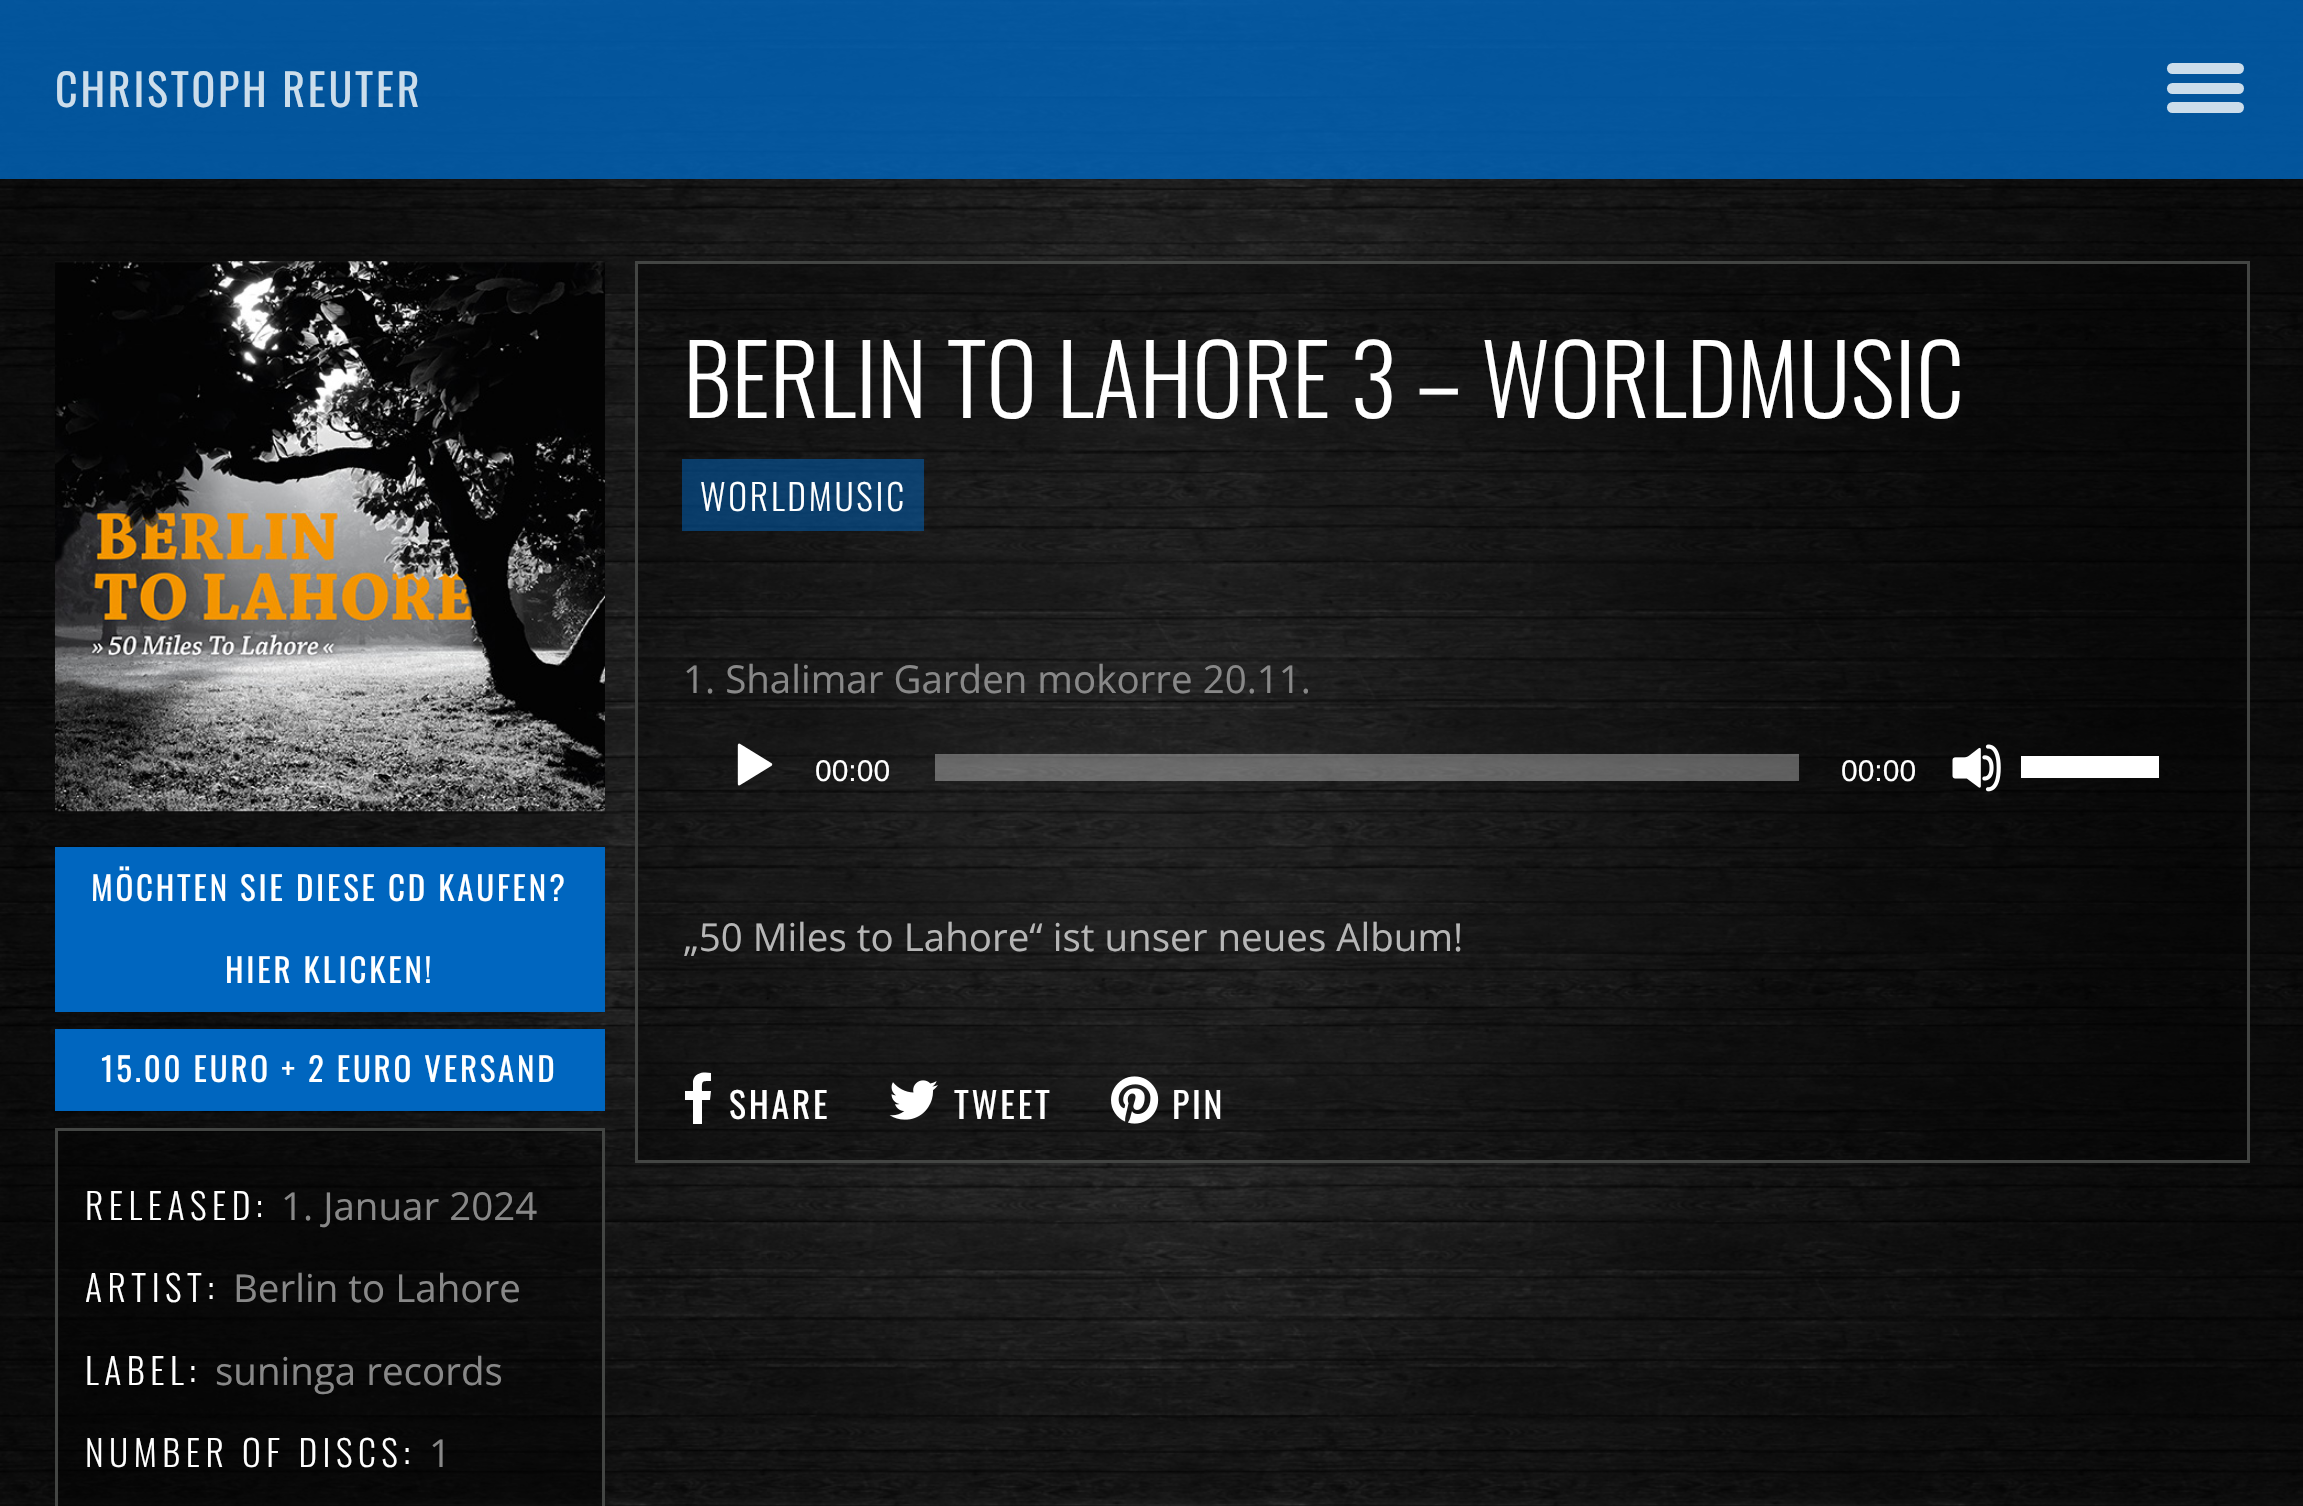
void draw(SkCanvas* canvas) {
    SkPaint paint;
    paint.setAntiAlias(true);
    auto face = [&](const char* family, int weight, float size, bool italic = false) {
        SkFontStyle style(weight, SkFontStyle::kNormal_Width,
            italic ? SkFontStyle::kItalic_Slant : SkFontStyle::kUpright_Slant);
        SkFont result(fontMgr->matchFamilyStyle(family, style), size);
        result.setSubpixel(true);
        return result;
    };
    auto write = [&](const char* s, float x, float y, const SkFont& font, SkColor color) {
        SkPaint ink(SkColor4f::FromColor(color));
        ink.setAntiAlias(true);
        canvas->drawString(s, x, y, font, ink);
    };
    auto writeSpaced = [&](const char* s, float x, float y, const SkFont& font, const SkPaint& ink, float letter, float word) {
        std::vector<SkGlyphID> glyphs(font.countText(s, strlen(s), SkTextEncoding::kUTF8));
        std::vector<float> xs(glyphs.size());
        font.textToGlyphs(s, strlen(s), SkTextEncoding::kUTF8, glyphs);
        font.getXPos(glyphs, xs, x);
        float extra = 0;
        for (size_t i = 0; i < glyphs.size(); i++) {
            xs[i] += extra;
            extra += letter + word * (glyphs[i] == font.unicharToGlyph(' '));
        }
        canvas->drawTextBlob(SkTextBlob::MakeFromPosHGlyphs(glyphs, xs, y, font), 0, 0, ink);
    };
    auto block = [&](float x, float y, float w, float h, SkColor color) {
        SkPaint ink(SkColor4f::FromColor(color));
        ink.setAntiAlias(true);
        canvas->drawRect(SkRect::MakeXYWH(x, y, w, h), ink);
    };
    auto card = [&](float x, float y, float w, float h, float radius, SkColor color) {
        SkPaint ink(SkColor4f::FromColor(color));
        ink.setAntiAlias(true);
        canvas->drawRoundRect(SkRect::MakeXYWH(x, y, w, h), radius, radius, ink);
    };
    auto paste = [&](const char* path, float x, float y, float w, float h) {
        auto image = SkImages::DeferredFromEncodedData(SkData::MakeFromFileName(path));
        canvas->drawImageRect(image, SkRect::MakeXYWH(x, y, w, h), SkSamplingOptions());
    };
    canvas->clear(SK_ColorWHITE);
    paste("pic1.png", 0, 0, 2303, 1506);
    block(0, 0, 2303, 179, SkColorSetARGB(204, 0, 102, 191));
    auto kFont1 = face("Oswald", 400, 44);
    paint.setColor(SkColorSetRGB(204, 221, 235));
    writeSpaced("CHRISTOPH REUTER", 55, 107, kFont1, paint, 2.75f, 0);
    card(2167, 63, 77, 11, 5.5f, SkColorSetRGB(204, 221, 235));
    card(2167, 83, 77, 11, 5.5f, SkColorSetRGB(204, 221, 235));
    card(2167, 102, 77, 11, 5.5f, SkColorSetRGB(204, 221, 235));
    paste("pic2.png", 55, 261, 550, 551);
    block(55, 847, 550, 165, SkColorSetRGB(0, 102, 191));
    auto kFont2 = face("Oswald", 400, 33);
    paint.setColor(SK_ColorWHITE);
    writeSpaced("MÖCHTEN SIE DIESE CD KAUFEN?", 91, 901, kFont2, paint, 2.75f, 0);
    writeSpaced("HIER KLICKEN!", 225, 983, kFont2, paint, 2.75f, 0);
    block(55, 1029, 550, 82, SkColorSetRGB(0, 102, 191));
    writeSpaced("15.00 EURO + 2 EURO VERSAND", 101, 1082, kFont2, paint, 2.75f, 0);
    paint.setColor(SkColorSetARGB(102, 0, 0, 0));
    canvas->drawRect(SkRect::MakeXYWH(56.5f, 1129.5f, 547, 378), paint);
    paint.setStyle(SkPaint::kStroke_Style);
    paint.setStrokeWidth(3);
    paint.setColor(SkColorSetRGB(67, 69, 67));
    canvas->drawRect(SkRect::MakeXYWH(56.5f, 1129.5f, 547, 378), paint);
    auto kFont3 = face("Oswald", 300, 35.75f);
    paint.setStyle(SkPaint::kFill_Style);
    paint.setColor(SK_ColorWHITE);
    writeSpaced("RELEASED:", 85, 1220, kFont3, paint, 5.5f, 0);
    auto kFont4 = face("Open Sans", 400, 38.5f);
    write("1. Januar 2024", 281, 1220, kFont4, SkColorSetRGB(136, 136, 136));
    writeSpaced("ARTIST:", 85, 1302, kFont3, paint, 5.5f, 0);
    write("Berlin to Lahore", 233, 1302, kFont4, SkColorSetRGB(136, 136, 136));
    writeSpaced("LABEL:", 85, 1385, kFont3, paint, 5.5f, 0);
    write("suninga records", 215, 1385, kFont4, SkColorSetRGB(136, 136, 136));
    writeSpaced("NUMBER OF DISCS:", 85, 1467, kFont3, paint, 5.5f, 0);
    write("1", 429, 1467, kFont4, SkColorSetRGB(136, 136, 136));
    paint.setColor(SkColorSetARGB(102, 0, 0, 0));
    canvas->drawRect(SkRect::MakeXYWH(636.5f, 262.5f, 1612, 899), paint);
    paint.setStyle(SkPaint::kStroke_Style);
    paint.setColor(SkColorSetRGB(67, 69, 67));
    canvas->drawRect(SkRect::MakeXYWH(636.5f, 262.5f, 1612, 899), paint);
    auto kFont5 = face("Oswald", 300, 96.25f);
    write("BERLIN TO LAHORE 3 – WORLDMUSIC", 683, 418, kFont5, SK_ColorWHITE);
    block(682, 459, 242, 72, SkColorSetARGB(128, 0, 102, 191));
    paint.setStyle(SkPaint::kFill_Style);
    paint.setColor(SK_ColorWHITE);
    writeSpaced("WORLDMUSIC", 700, 511, kFont3, paint, 2.75f, 0);
    write("1. Shalimar Garden mokorre 20.11.", 683, 693, kFont4, SkColorSetRGB(136, 136, 136));
    paste("pic3.png", 737, 743, 36, 43);
    auto kFont6 = face("Liberation Sans", 400, 30);
    write("00:00", 815, 781, kFont6, SK_ColorWHITE);
    block(935, 754, 864, 27, SkColorSetARGB(84, 255, 255, 255));
    write("00:00", 1841, 781, kFont6, SK_ColorWHITE);
    paste("pic4.png", 1952, 744, 49, 48);
    block(2021, 756, 138, 22, SK_ColorWHITE);
    write("„50 Miles to Lahore“ ist unser neues Album!", 683, 951, kFont4, SkColorSetRGB(182, 182, 182));
    auto kFont7 = face("Oswald", 400, 35.75f);
    writeSpaced("SHARE", 729, 1119, kFont7, paint, 2.75f, 0);
    canvas->drawPath(SkPathBuilder().moveTo(711, 1073).lineTo(711, 1081).cubicTo(701, 1081, 702, 1081, 702, 1091).lineTo(711, 1091).lineTo(710, 1100).lineTo(702, 1100).lineTo(702, 1124).lineTo(693, 1124).lineTo(693, 1100).lineTo(685, 1100).lineTo(685, 1091).lineTo(693, 1091).lineTo(693, 1081).cubicTo(695, 1072, 704, 1072, 711, 1073).close().detach(), paint);
    paste("pic5.png", 889, 1080, 49, 40);
    writeSpaced("TWEET", 954, 1119, kFont7, paint, 2.75f, 0);
    paste("pic6.png", 1111, 1076, 48, 48);
    writeSpaced("PIN", 1172, 1119, kFont7, paint, 2.75f, 0);
}
